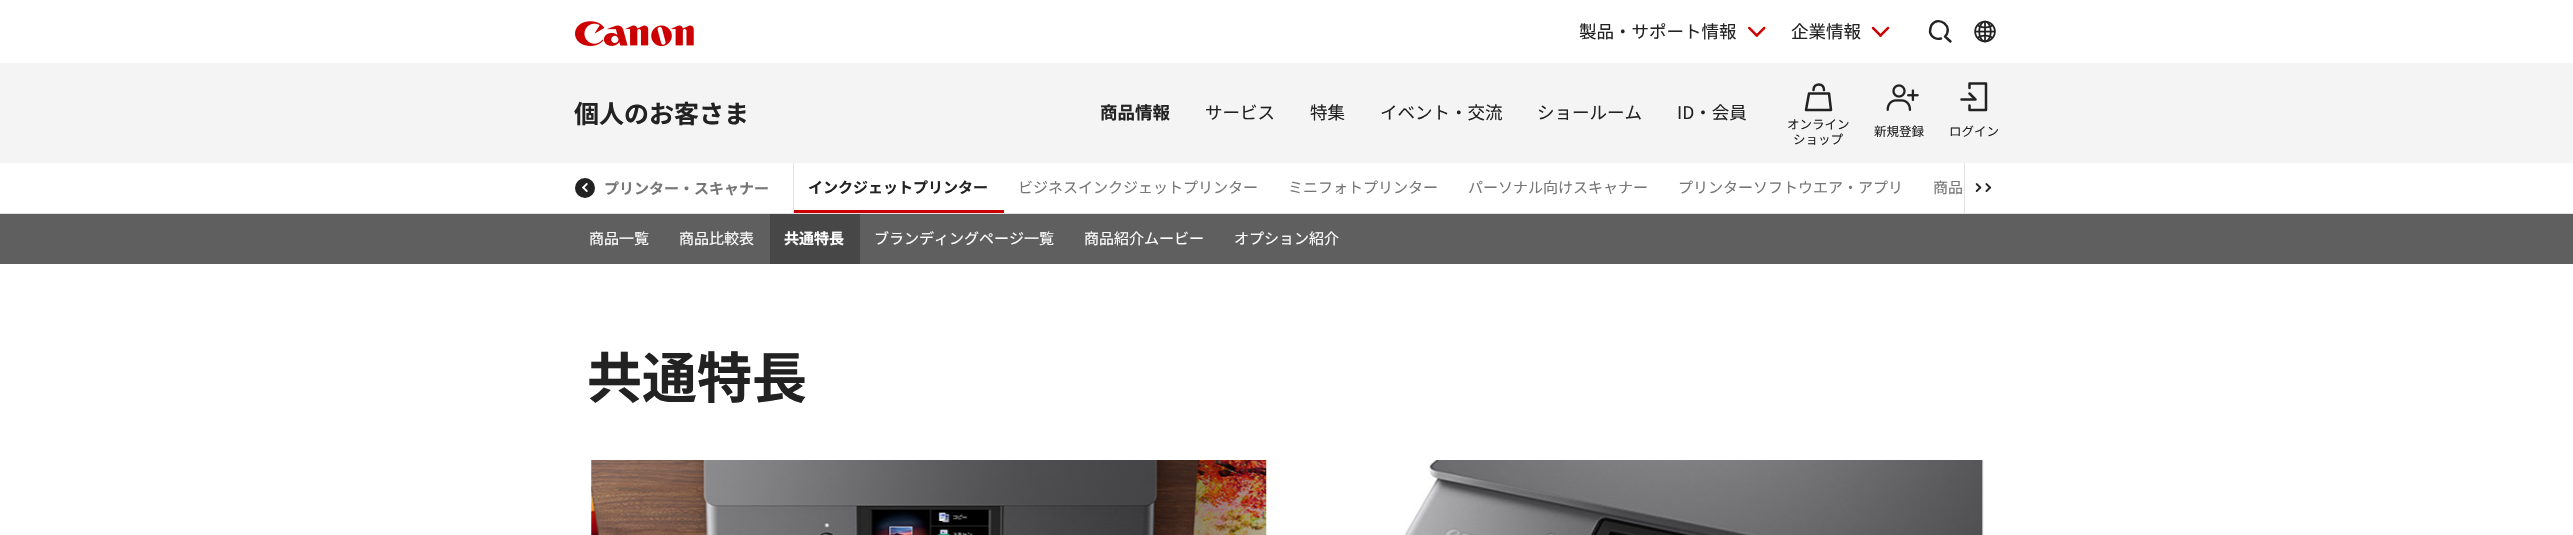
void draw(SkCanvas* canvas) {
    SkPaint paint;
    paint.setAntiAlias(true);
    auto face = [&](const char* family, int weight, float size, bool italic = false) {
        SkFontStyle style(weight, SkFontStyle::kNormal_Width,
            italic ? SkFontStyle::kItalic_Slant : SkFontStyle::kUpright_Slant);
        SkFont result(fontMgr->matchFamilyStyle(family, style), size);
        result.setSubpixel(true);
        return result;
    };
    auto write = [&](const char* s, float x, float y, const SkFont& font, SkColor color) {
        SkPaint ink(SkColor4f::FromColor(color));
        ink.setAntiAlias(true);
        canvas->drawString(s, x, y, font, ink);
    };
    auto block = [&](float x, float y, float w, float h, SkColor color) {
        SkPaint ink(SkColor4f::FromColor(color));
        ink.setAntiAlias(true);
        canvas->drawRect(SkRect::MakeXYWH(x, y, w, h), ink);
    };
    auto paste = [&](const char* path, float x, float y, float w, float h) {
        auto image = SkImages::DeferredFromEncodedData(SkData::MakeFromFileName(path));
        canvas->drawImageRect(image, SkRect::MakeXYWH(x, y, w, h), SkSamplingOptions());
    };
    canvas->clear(SK_ColorWHITE);
    paste("pic1.png", 575, 21, 119, 25);
    auto kFont1 = face("Noto Sans JP", 400, 17.5f);
    write("製品・サポート情報", 1579, 38, kFont1, SkColorSetRGB(34, 34, 34));
    paste("pic2.png", 1748, 26, 18, 11);
    write("企業情報", 1791, 38, kFont1, SkColorSetRGB(34, 34, 34));
    paste("pic3.png", 1871, 26, 19, 11);
    paint.setStyle(SkPaint::kStroke_Style);
    paint.setStrokeWidth(2.4f);
    paint.setStrokeCap(SkPaint::kRound_Cap);
    paint.setStrokeJoin(SkPaint::kRound_Join);
    paint.setColor(SkColorSetRGB(34, 34, 34));
    canvas->drawPath(SkPathBuilder().moveTo(1941, 38.5f).cubicTo(1936.5f, 40, 1931, 37, 1930, 32).cubicTo(1930, 29.5f, 1930.5f, 27, 1931.5f, 25).cubicTo(1939, 14.5f, 1954, 27.5f, 1945, 36.5f).moveTo(1950.5f, 41.5f).lineTo(1945, 36.5f).detach(), paint);
    paste("pic4.png", 1974, 20, 22, 23);
    block(0, 63, 2573, 100, SkColorSetRGB(244, 244, 244));
    auto kFont2 = face("Noto Sans JP", 700, 25);
    write("個人のお客さま", 574, 123, kFont2, SkColorSetRGB(34, 34, 34));
    auto kFont3 = face("Noto Sans JP", 700, 17.5f);
    write("商品情報", 1100, 119, kFont3, SkColorSetRGB(34, 34, 34));
    write("サービス", 1205, 119, kFont1, SkColorSetRGB(34, 34, 34));
    write("特集", 1310, 119, kFont1, SkColorSetRGB(34, 34, 34));
    write("イベント・交流", 1380, 119, kFont1, SkColorSetRGB(34, 34, 34));
    write("ショールーム", 1537, 119, kFont1, SkColorSetRGB(34, 34, 34));
    write("ID・会員", 1677, 119, kFont1, SkColorSetRGB(34, 34, 34));
    paint.setStrokeWidth(2.5f);
    paint.setStrokeCap(SkPaint::kButt_Cap);
    canvas->drawPath(SkPathBuilder().moveTo(1809, 93.5f).lineTo(1829, 93.5f).lineTo(1831, 110).lineTo(1806, 110).close().detach(), paint);
    paint.setStrokeCap(SkPaint::kRound_Cap);
    canvas->drawPath(SkPathBuilder().moveTo(1813.5f, 90).cubicTo(1813.5f, 82.5f, 1824.5f, 82.5f, 1824, 90).detach(), paint);
    auto kFont4 = face("Noto Sans JP", 400, 12.5f);
    write("オンライン", 1787, 129, kFont4, SkColorSetRGB(34, 34, 34));
    write("ショップ", 1793, 144, kFont4, SkColorSetRGB(34, 34, 34));
    paste("pic5.png", 1886, 84, 33, 27);
    write("新規登録", 1874, 136, kFont4, SkColorSetRGB(34, 34, 34));
    canvas->drawPath(SkPathBuilder().moveTo(1961.5f, 99.5f).lineTo(1975.5f, 99.5f).lineTo(1969.5f, 93.5f).moveTo(1969.5f, 88).lineTo(1969.5f, 83.5f).lineTo(1986, 83.5f).lineTo(1986, 110).lineTo(1969.5f, 110).lineTo(1969.5f, 105.5f).detach(), paint);
    write("ログイン", 1949, 136, kFont4, SkColorSetRGB(34, 34, 34));
    block(0, 213, 2573, 1, SkColorSetRGB(227, 227, 227));
    paint.setStyle(SkPaint::kFill_Style);
    canvas->drawCircle(585, 188, 10, paint);
    paste("pic6.png", 582, 183, 6, 9);
    auto kFont5 = face("Noto Sans JP", 700, 15);
    write("プリンター・スキャナー", 604, 194, kFont5, SkColorSetRGB(118, 118, 118));
    block(793, 163, 1, 50, SkColorSetRGB(227, 227, 227));
    write("インクジェットプリンター", 808, 193, kFont5, SkColorSetRGB(34, 34, 34));
    block(794, 210, 210, 3, SkColorSetRGB(204, 0, 0));
    auto kFont6 = face("Noto Sans JP", 400, 15);
    write("ビジネスインクジェットプリンター", 1018, 193, kFont6, SkColorSetRGB(118, 118, 118));
    write("ミニフォトプリンター", 1288, 193, kFont6, SkColorSetRGB(118, 118, 118));
    write("パーソナル向けスキャナー", 1468, 193, kFont6, SkColorSetRGB(118, 118, 118));
    write("プリンターソフトウエア・アプリ", 1678, 193, kFont6, SkColorSetRGB(118, 118, 118));
    write("商品", 1933, 193, kFont6, SkColorSetRGB(118, 118, 118));
    block(1964, 163, 1, 50, SkColorSetRGB(227, 227, 227));
    paste("pic7.png", 1975, 183, 16, 9);
    block(0, 214, 2573, 50, SkColorSetRGB(95, 95, 95));
    write("商品一覧", 589, 244, kFont6, SK_ColorWHITE);
    write("商品比較表", 679, 244, kFont6, SK_ColorWHITE);
    block(770, 214, 90, 50, SkColorSetRGB(71, 71, 71));
    write("共通特長", 784, 244, kFont5, SK_ColorWHITE);
    write("ブランディングページ一覧", 874, 244, kFont6, SK_ColorWHITE);
    write("商品紹介ムービー", 1084, 244, kFont6, SK_ColorWHITE);
    write("オプション紹介", 1234, 244, kFont6, SK_ColorWHITE);
    auto kFont7 = face("Noto Sans JP", 700, 55);
    write("共通特長", 587, 398, kFont7, SkColorSetRGB(34, 34, 34));
    paste("pic8.png", 591, 460, 676, 75);
    paste("pic9.png", 1404, 460, 580, 75);
}
